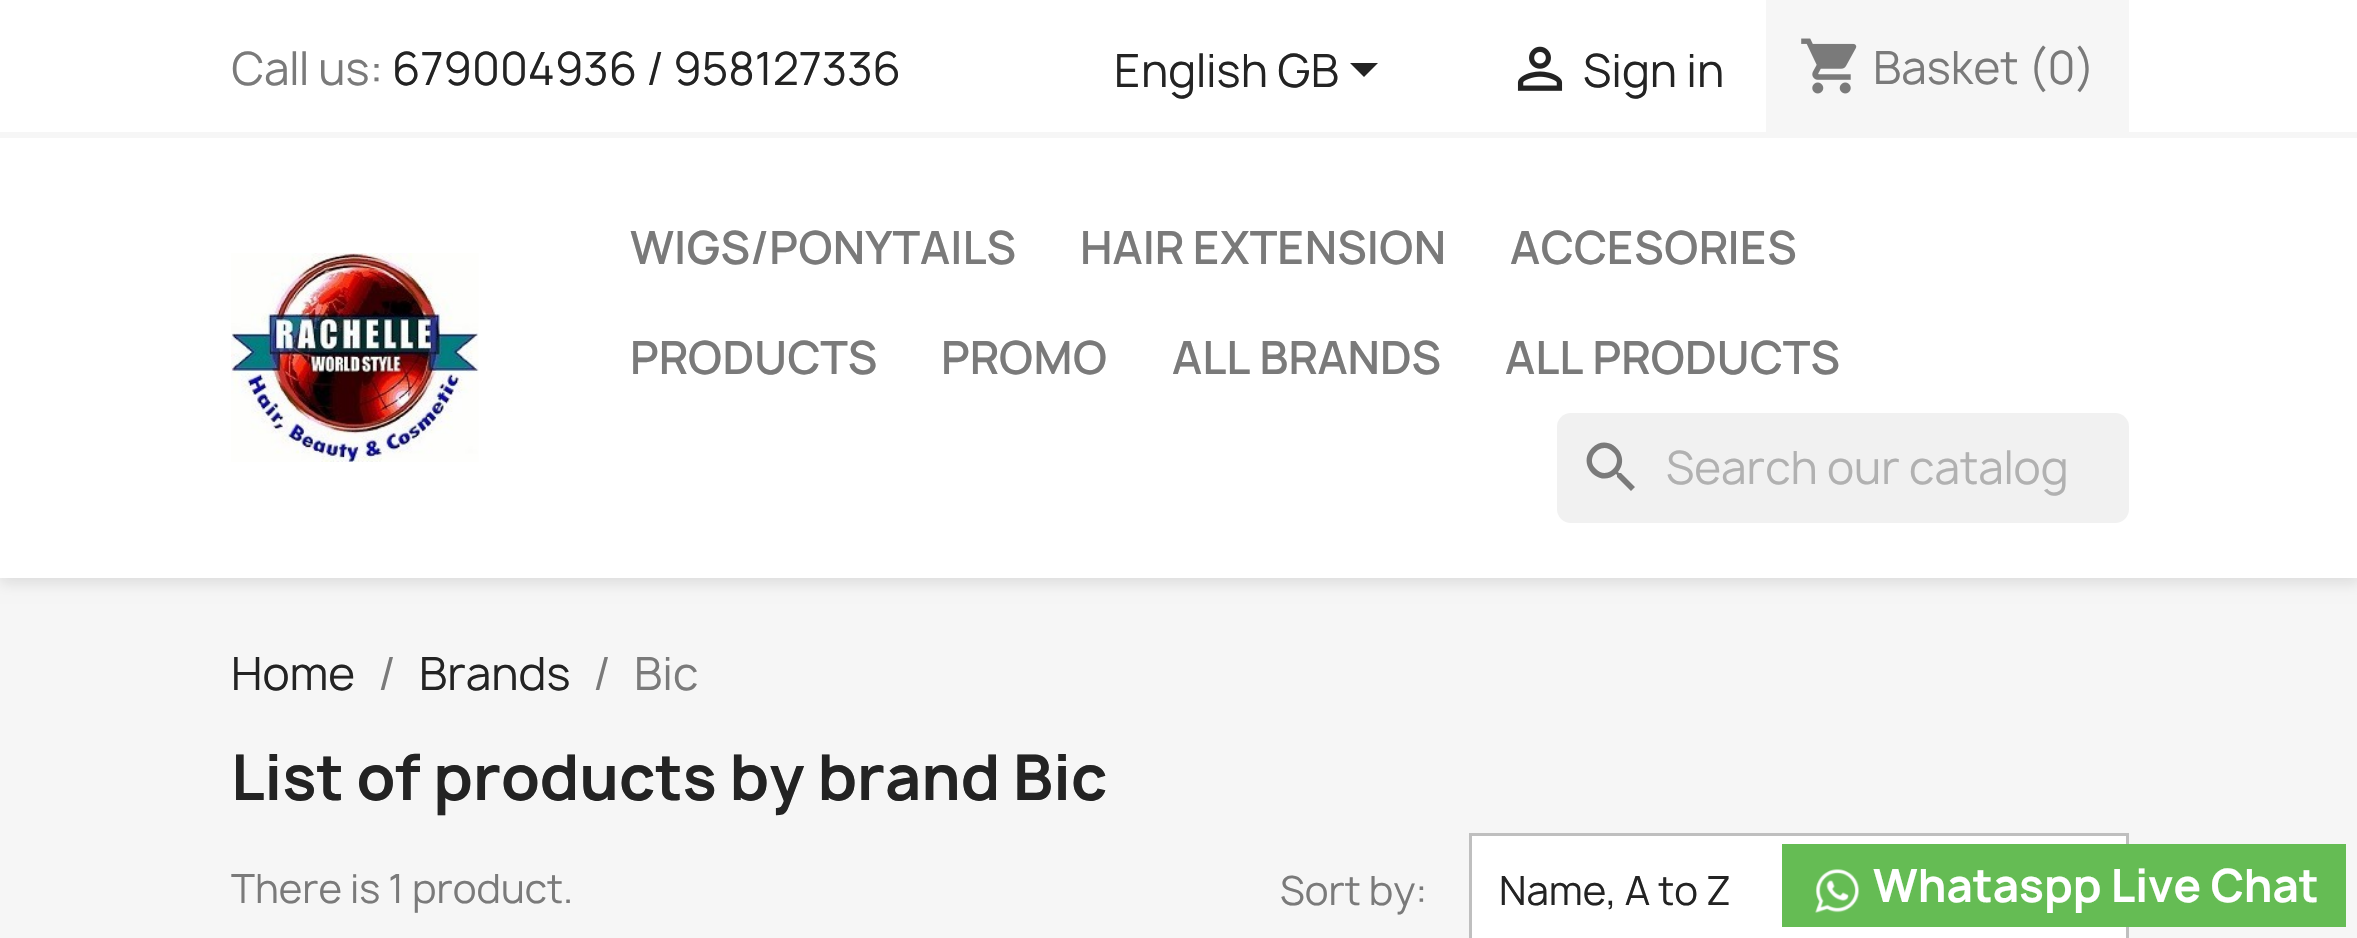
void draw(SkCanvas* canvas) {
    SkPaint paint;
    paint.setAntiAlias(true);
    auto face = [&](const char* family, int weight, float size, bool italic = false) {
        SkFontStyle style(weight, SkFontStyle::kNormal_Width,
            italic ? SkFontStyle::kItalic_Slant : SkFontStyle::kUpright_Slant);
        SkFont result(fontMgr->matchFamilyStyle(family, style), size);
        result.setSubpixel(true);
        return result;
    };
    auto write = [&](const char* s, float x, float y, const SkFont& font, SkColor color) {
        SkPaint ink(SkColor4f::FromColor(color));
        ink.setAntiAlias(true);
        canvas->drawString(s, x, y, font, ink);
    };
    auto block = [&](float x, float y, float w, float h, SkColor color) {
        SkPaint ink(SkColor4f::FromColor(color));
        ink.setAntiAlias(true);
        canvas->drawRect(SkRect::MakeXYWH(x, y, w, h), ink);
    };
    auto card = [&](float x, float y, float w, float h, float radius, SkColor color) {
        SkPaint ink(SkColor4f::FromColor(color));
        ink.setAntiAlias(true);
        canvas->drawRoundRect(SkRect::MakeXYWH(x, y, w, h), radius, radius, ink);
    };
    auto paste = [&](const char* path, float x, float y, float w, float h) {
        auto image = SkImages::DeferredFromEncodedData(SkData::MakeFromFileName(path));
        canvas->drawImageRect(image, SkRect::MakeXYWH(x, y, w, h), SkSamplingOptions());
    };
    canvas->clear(SkColorSetRGB(246, 246, 246));
    paint.setColor(SkColorSetARGB(28, 0, 0, 0));
    paint.setMaskFilter(SkMaskFilter::MakeBlur(kNormal_SkBlurStyle, 7));
    canvas->drawRect(SkRect::MakeXYWH(0, 6, 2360, 577), paint);
    paint.setMaskFilter(nullptr);
    block(0, 0, 2357, 578, SK_ColorWHITE);
    block(0, 132, 2357, 6, SkColorSetRGB(246, 246, 246));
    auto kFont1 = face("Manrope", 400, 44);
    write("Call us:", 231, 85, kFont1, SkColorSetRGB(122, 122, 122));
    write("679004936 / 958127336", 392, 85, kFont1, SkColorSetRGB(35, 35, 35));
    write("English GB", 1114, 87, kFont1, SkColorSetRGB(35, 35, 35));
    paint.setColor(SkColorSetRGB(35, 35, 35));
    canvas->drawPath(SkPathBuilder().moveTo(1350, 63).lineTo(1378, 63).lineTo(1364, 77).close().detach(), paint);
    paste("pic1.png", 1517, 46, 46, 45);
    write("Sign in", 1583, 87, kFont1, SkColorSetRGB(35, 35, 35));
    block(1766, 0, 363, 132, SkColorSetRGB(246, 246, 246));
    paste("pic2.png", 1801, 38, 56, 56);
    write("Basket (0)", 1873, 84, kFont1, SkColorSetRGB(122, 122, 122));
    paste("pic3.png", 231, 253, 248, 209);
    auto kFont2 = face("Manrope", 600, 44);
    write("WIGS/PONYTAILS", 630, 264, kFont2, SkColorSetRGB(122, 122, 122));
    write("HAIR EXTENSION", 1080, 264, kFont2, SkColorSetRGB(122, 122, 122));
    write("ACCESORIES", 1510, 264, kFont2, SkColorSetRGB(122, 122, 122));
    write("PRODUCTS", 630, 374, kFont2, SkColorSetRGB(122, 122, 122));
    write("PROMO", 941, 374, kFont2, SkColorSetRGB(122, 122, 122));
    write("ALL BRANDS", 1172, 374, kFont2, SkColorSetRGB(122, 122, 122));
    write("ALL PRODUCTS", 1505, 374, kFont2, SkColorSetRGB(122, 122, 122));
    card(1557, 413, 572, 110, 14, SkColorSetRGB(241, 241, 241));
    paint.setColor(SkColorSetRGB(122, 122, 122));
    canvas->drawPath(SkPathBuilder().moveTo(1596, 469).cubicTo(1607, 481, 1625, 463, 1613, 452).cubicTo(1602, 440, 1584, 458, 1596, 469).close().moveTo(1621, 473).lineTo(1635, 487).lineTo(1631, 491).lineTo(1617, 477).lineTo(1617, 475).lineTo(1616, 474).cubicTo(1599, 489, 1576, 464, 1592, 448).cubicTo(1608, 432, 1632, 455, 1618, 472).lineTo(1619, 473).close().detach(), paint);
    write("Search our catalog", 1666, 484, kFont1, SkColorSetRGB(177, 177, 177));
    write("Home", 231, 690, kFont1, SkColorSetRGB(35, 35, 35));
    write("/", 378, 690, kFont1, SkColorSetRGB(122, 122, 122));
    write("Brands", 419, 690, kFont1, SkColorSetRGB(35, 35, 35));
    write("/", 593, 690, kFont1, SkColorSetRGB(122, 122, 122));
    write("Bic", 634, 690, kFont1, SkColorSetRGB(122, 122, 122));
    auto kFont3 = face("Manrope", 700, 60.5f);
    write("List of products by brand Bic", 231, 800, kFont3, SkColorSetRGB(35, 35, 35));
    auto kFont4 = face("Manrope", 400, 38.5f);
    write("There is 1 product.", 231, 903, kFont4, SkColorSetRGB(122, 122, 122));
    write("Sort by:", 1280, 905, kFont4, SkColorSetRGB(122, 122, 122));
    paint.setColor(SK_ColorWHITE);
    canvas->drawRect(SkRect::MakeXYWH(1470.5f, 834.5f, 657, 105), paint);
    paint.setStyle(SkPaint::kStroke_Style);
    paint.setStrokeWidth(3);
    paint.setColor(SkColorSetRGB(191, 191, 191));
    canvas->drawRect(SkRect::MakeXYWH(1470.5f, 834.5f, 657, 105), paint);
    write("Name, A to Z", 1499, 905, kFont4, SkColorSetRGB(35, 35, 35));
    block(1782, 844, 564, 83, SkColorSetRGB(101, 188, 84));
    paste("pic4.png", 1815, 869, 45, 44);
    auto kFont5 = face("Manrope", 700, 44);
    write("Whataspp Live Chat", 1873, 902, kFont5, SK_ColorWHITE);
}
